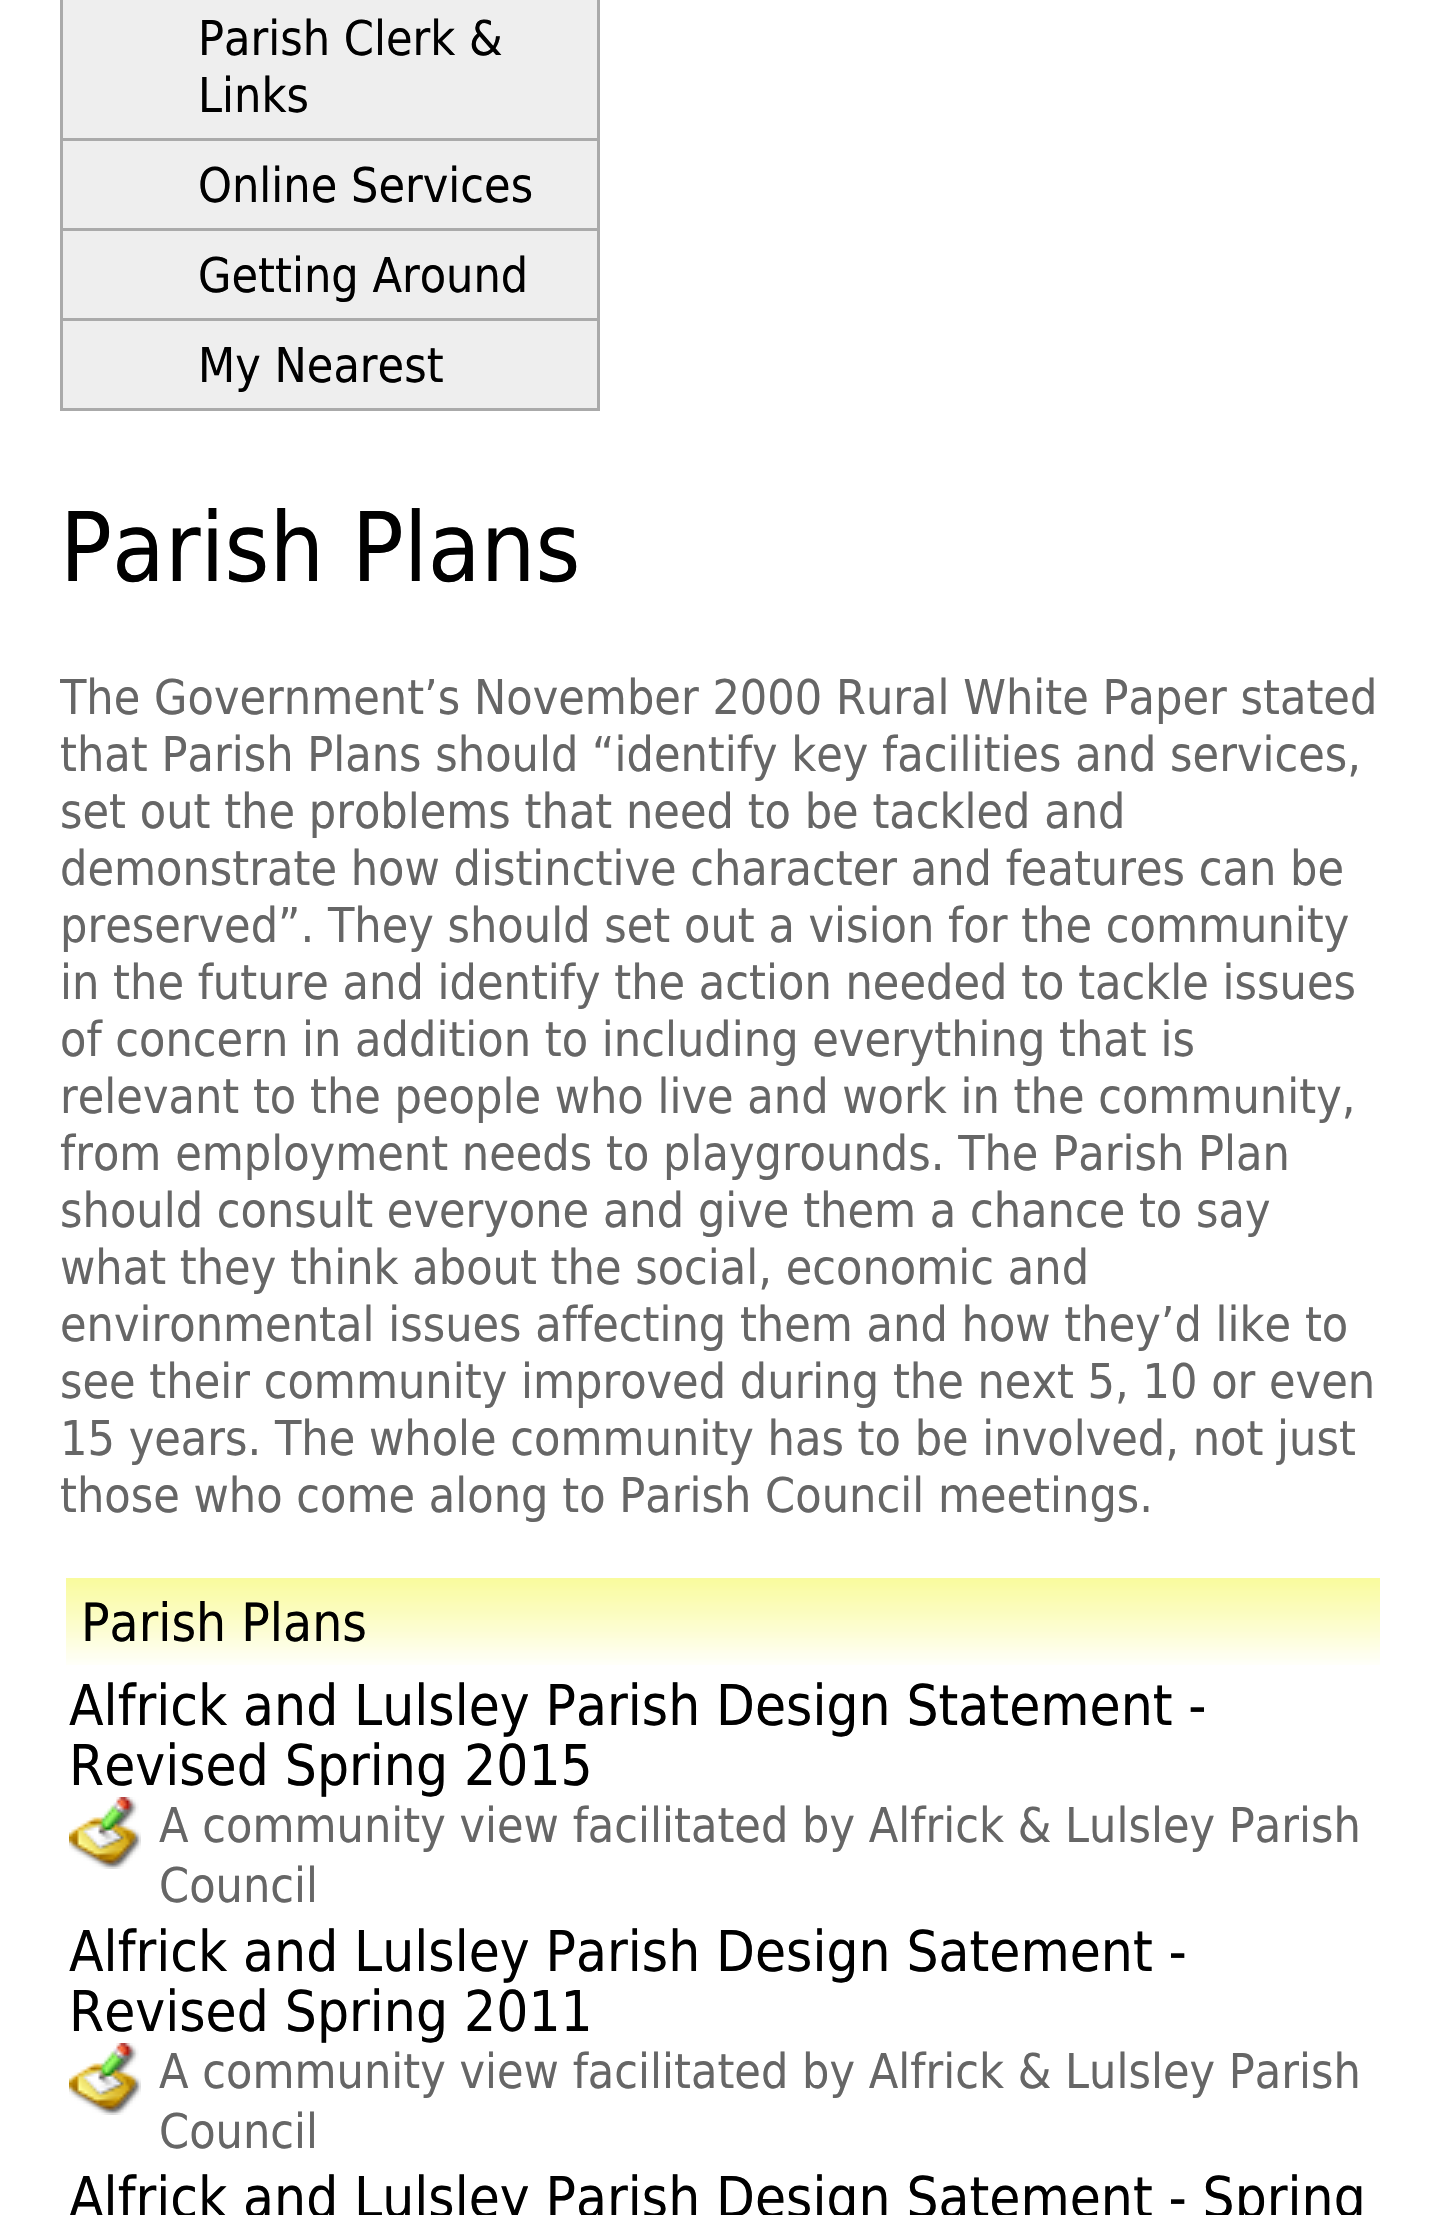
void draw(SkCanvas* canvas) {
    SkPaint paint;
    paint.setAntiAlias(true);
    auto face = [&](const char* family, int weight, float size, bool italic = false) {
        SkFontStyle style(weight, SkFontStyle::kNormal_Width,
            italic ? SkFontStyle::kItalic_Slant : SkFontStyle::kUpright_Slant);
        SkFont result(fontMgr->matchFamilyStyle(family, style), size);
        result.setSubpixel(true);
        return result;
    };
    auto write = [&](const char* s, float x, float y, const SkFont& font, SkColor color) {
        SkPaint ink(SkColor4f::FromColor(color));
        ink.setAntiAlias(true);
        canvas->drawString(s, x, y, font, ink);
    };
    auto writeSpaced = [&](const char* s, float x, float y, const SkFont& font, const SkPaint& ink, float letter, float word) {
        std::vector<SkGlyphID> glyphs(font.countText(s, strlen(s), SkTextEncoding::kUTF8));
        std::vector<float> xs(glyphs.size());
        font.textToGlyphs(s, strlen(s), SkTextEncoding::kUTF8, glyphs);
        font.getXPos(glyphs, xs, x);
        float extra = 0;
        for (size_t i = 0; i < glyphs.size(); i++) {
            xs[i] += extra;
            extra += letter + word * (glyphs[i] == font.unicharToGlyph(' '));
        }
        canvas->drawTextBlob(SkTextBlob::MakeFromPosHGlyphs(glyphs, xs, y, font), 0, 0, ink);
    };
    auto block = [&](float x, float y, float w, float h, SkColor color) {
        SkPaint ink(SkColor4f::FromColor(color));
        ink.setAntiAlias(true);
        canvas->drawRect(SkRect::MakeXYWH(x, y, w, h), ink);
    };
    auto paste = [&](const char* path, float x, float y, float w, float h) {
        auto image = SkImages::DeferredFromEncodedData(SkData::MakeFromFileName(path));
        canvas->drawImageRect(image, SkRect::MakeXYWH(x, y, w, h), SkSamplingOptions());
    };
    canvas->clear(SK_ColorWHITE);
    block(597, 0, 3, 411, SkColorSetRGB(170, 170, 170));
    block(60, 0, 3, 411, SkColorSetRGB(170, 170, 170));
    block(63, 0, 534, 138, SkColorSetRGB(238, 238, 238));
    block(63, 138, 534, 3, SkColorSetRGB(170, 170, 170));
    auto kFont1 = face("DejaVu Sans", 400, 48);
    write("Parish Clerk &", 198, 55, kFont1, SK_ColorBLACK);
    write("Links", 198, 112, kFont1, SK_ColorBLACK);
    block(63, 141, 534, 87, SkColorSetRGB(238, 238, 238));
    block(63, 228, 534, 3, SkColorSetRGB(170, 170, 170));
    write("Online Services", 198, 202, kFont1, SK_ColorBLACK);
    block(63, 231, 534, 87, SkColorSetRGB(238, 238, 238));
    block(63, 318, 534, 3, SkColorSetRGB(170, 170, 170));
    write("Getting Around", 198, 292, kFont1, SK_ColorBLACK);
    block(63, 321, 534, 87, SkColorSetRGB(238, 238, 238));
    block(63, 408, 534, 3, SkColorSetRGB(170, 170, 170));
    write("My Nearest", 198, 382, kFont1, SK_ColorBLACK);
    auto kFont2 = face("DejaVu Sans", 400, 96);
    write("Parish Plans", 60, 581, kFont2, SK_ColorBLACK);
    canvas->save();
    canvas->clipRect(SkRect::MakeXYWH(60, 426, 1326, 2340));
    write("The Government’s November 2000 Rural White Paper stated", 60, 714, kFont1, SkColorSetRGB(102, 102, 102));
    canvas->restore();
    write("that Parish Plans should “identify key facilities and services,", 60, 771, kFont1, SkColorSetRGB(102, 102, 102));
    write("set out the problems that need to be tackled and", 60, 828, kFont1, SkColorSetRGB(102, 102, 102));
    write("demonstrate how distinctive character and features can be", 60, 885, kFont1, SkColorSetRGB(102, 102, 102));
    write("preserved”. They should set out a vision for the community", 60, 942, kFont1, SkColorSetRGB(102, 102, 102));
    write("in the future and identify the action needed to tackle issues", 60, 999, kFont1, SkColorSetRGB(102, 102, 102));
    write("of concern in addition to including everything that is", 60, 1056, kFont1, SkColorSetRGB(102, 102, 102));
    write("relevant to the people who live and work in the community,", 60, 1113, kFont1, SkColorSetRGB(102, 102, 102));
    write("from employment needs to playgrounds. The Parish Plan", 60, 1170, kFont1, SkColorSetRGB(102, 102, 102));
    write("should consult everyone and give them a chance to say", 60, 1227, kFont1, SkColorSetRGB(102, 102, 102));
    write("what they think about the social, economic and", 60, 1284, kFont1, SkColorSetRGB(102, 102, 102));
    write("environmental issues affecting them and how they’d like to", 60, 1341, kFont1, SkColorSetRGB(102, 102, 102));
    write("see their community improved during the next 5, 10 or even", 60, 1398, kFont1, SkColorSetRGB(102, 102, 102));
    write("15 years. The whole community has to be involved, not just", 60, 1455, kFont1, SkColorSetRGB(102, 102, 102));
    write("those who come along to Parish Council meetings.", 60, 1512, kFont1, SkColorSetRGB(102, 102, 102));
    paste("pic1.png", 66, 1578, 1314, 87);
    auto kFont3 = face("DejaVu Sans", 400, 52.75f);
    write("Parish Plans", 81, 1641, kFont3, SK_ColorBLACK);
    auto kFont4 = face("DejaVu Sans", 400, 56.2f);
    paint.setColor(SK_ColorBLACK);
    writeSpaced("Alfrick and Lulsley Parish Design Statement -", 69, 1725, kFont4, paint, 0, -0.25f);
    write("Revised Spring 2015", 69, 1785, kFont4, SK_ColorBLACK);
    paste("pic2.png", 69, 1797, 72, 72);
    write("A community view facilitated by Alfrick & Lulsley Parish", 159, 1842, kFont1, SkColorSetRGB(102, 102, 102));
    write("Council", 159, 1902, kFont1, SkColorSetRGB(102, 102, 102));
    writeSpaced("Alfrick and Lulsley Parish Design Satement -", 69, 1971, kFont4, paint, 0, -0.25f);
    write("Revised Spring 2011", 69, 2031, kFont4, SK_ColorBLACK);
    paste("pic2.png", 69, 2043, 72, 72);
    write("A community view facilitated by Alfrick & Lulsley Parish", 159, 2088, kFont1, SkColorSetRGB(102, 102, 102));
    write("Council", 159, 2148, kFont1, SkColorSetRGB(102, 102, 102));
    writeSpaced("Alfrick and Lulsley Parish Design Satement - Spring", 69, 2217, kFont4, paint, 0, -0.25f);
}
